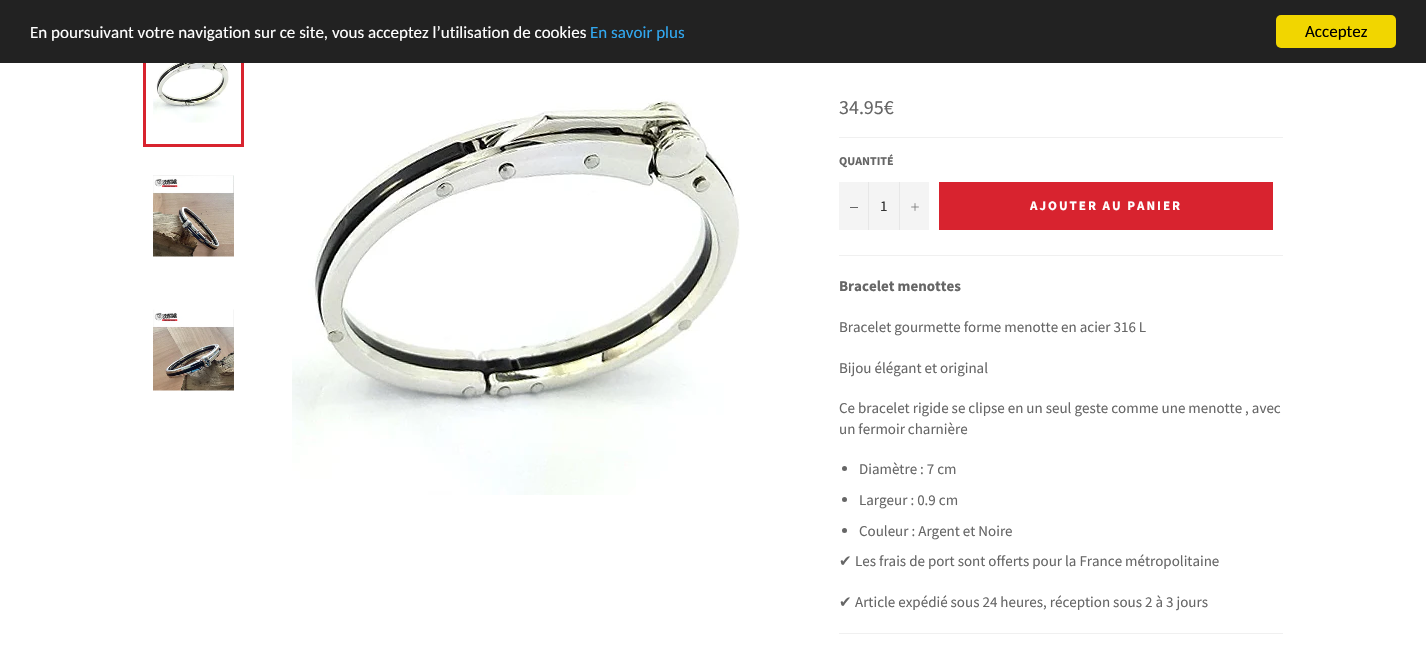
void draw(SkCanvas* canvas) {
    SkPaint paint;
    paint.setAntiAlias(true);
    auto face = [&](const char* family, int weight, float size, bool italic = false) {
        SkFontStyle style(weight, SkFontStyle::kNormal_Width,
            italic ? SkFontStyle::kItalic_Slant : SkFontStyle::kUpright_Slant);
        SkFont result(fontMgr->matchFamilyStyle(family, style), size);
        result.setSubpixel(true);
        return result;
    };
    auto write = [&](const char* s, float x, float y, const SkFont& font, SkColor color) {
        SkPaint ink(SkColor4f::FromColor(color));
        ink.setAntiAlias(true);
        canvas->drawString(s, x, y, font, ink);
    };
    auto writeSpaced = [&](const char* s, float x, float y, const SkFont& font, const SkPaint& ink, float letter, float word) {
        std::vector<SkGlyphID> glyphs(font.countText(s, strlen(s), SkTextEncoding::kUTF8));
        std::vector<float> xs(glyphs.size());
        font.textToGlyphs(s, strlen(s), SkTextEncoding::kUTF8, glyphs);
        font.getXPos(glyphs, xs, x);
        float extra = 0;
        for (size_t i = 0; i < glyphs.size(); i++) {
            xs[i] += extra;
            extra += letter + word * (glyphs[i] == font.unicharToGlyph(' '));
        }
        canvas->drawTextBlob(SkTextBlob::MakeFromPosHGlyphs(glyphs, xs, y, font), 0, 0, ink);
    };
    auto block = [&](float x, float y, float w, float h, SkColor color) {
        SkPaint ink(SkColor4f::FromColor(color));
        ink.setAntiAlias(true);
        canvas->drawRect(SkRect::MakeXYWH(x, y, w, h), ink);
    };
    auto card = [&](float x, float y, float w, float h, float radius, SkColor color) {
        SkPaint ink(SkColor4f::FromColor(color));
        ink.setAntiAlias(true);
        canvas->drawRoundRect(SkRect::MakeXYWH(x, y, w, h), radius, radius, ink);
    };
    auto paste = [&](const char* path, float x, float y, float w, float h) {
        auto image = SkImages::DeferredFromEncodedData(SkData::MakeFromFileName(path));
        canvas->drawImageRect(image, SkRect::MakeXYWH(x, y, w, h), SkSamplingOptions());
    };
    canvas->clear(SK_ColorWHITE);
    paste("pic1.png", 153, 63, 76, 60);
    paint.setStyle(SkPaint::kStroke_Style);
    paint.setStrokeWidth(3);
    paint.setColor(SkColorSetRGB(216, 35, 47));
    canvas->drawRect(SkRect::MakeXYWH(144.5f, 18.5f, 98, 127), paint);
    block(0, 0, 1426, 63, SkColorSetRGB(34, 34, 34));
    auto kFont1 = face("Carlito", 400, 17);
    write("En poursuivant votre navigation sur ce site, vous acceptez l’utilisation de cookies", 30, 38, kFont1, SK_ColorWHITE);
    write("En savoir plus", 590, 38, kFont1, SkColorSetRGB(49, 168, 240));
    card(1276, 15, 120, 33, 5, SkColorSetRGB(241, 214, 0));
    write("Acceptez", 1305, 37, kFont1, SK_ColorBLACK);
    paste("pic2.png", 153, 175, 81, 82);
    paste("pic3.png", 153, 309, 81, 82);
    paste("pic4.png", 292, 63, 448, 432);
    auto kFont2 = face("Source Sans Pro", 400, 20);
    write("34.95€", 839, 114, kFont2, SkColorSetRGB(102, 102, 102));
    block(839, 137, 444, 1, SkColorSetRGB(240, 240, 240));
    auto kFont3 = face("Source Sans Pro", 700, 12);
    write("QUANTITÉ", 839, 165, kFont3, SkColorSetRGB(102, 102, 102));
    block(839, 182, 90, 48, SkColorSetRGB(244, 244, 244));
    block(868, 182, 1, 48, SkColorSetRGB(231, 231, 231));
    block(850, 207, 8, 1, SkColorSetRGB(102, 102, 102));
    auto kFont4 = face("Source Sans Pro", 400, 15);
    write("1", 880, 211, kFont4, SkColorSetRGB(51, 51, 51));
    block(899, 182, 1, 48, SkColorSetRGB(231, 231, 231));
    paste("pic5.png", 911, 203, 8, 8);
    block(939, 182, 334, 48, SkColorSetRGB(216, 35, 47));
    auto kFont5 = face("Source Sans Pro", 700, 13);
    paint.setStyle(SkPaint::kFill_Style);
    paint.setColor(SK_ColorWHITE);
    writeSpaced("AJOUTER AU PANIER", 1030, 210, kFont5, paint, 2, 0);
    block(839, 255, 444, 1, SkColorSetRGB(240, 240, 240));
    auto kFont6 = face("Source Sans Pro", 700, 15);
    write("Bracelet menottes", 839, 291, kFont6, SkColorSetRGB(102, 102, 102));
    write("Bracelet gourmette forme menotte en acier 316 L", 839, 332, kFont4, SkColorSetRGB(102, 102, 102));
    write("Bijou élégant et original", 839, 373, kFont4, SkColorSetRGB(102, 102, 102));
    write("Ce bracelet rigide se clipse en un seul geste comme une menotte , avec", 839, 413, kFont4, SkColorSetRGB(102, 102, 102));
    write("un fermoir charnière", 839, 434, kFont4, SkColorSetRGB(102, 102, 102));
    paint.setColor(SkColorSetRGB(102, 102, 102));
    canvas->drawCircle(844.5f, 468.5f, 2.5f, paint);
    write("Diamètre : 7 cm", 859, 474, kFont4, SkColorSetRGB(102, 102, 102));
    canvas->drawCircle(844.5f, 499.5f, 2.5f, paint);
    write("Largeur : 0.9 cm", 859, 505, kFont4, SkColorSetRGB(102, 102, 102));
    canvas->drawCircle(844.5f, 530.5f, 2.5f, paint);
    write("Couleur : Argent et Noire", 859, 536, kFont4, SkColorSetRGB(102, 102, 102));
    auto kFont7 = face("DejaVu Sans", 400, 15);
    write("✔", 839, 566, kFont7, SkColorSetRGB(102, 102, 102));
    write("Les frais de port sont offerts pour la France métropolitaine", 855, 566, kFont4, SkColorSetRGB(102, 102, 102));
    write("✔", 839, 607, kFont7, SkColorSetRGB(102, 102, 102));
    write("Article expédié sous 24 heures, réception sous 2 à 3 jours", 855, 607, kFont4, SkColorSetRGB(102, 102, 102));
    block(839, 633, 444, 1, SkColorSetRGB(240, 240, 240));
}
